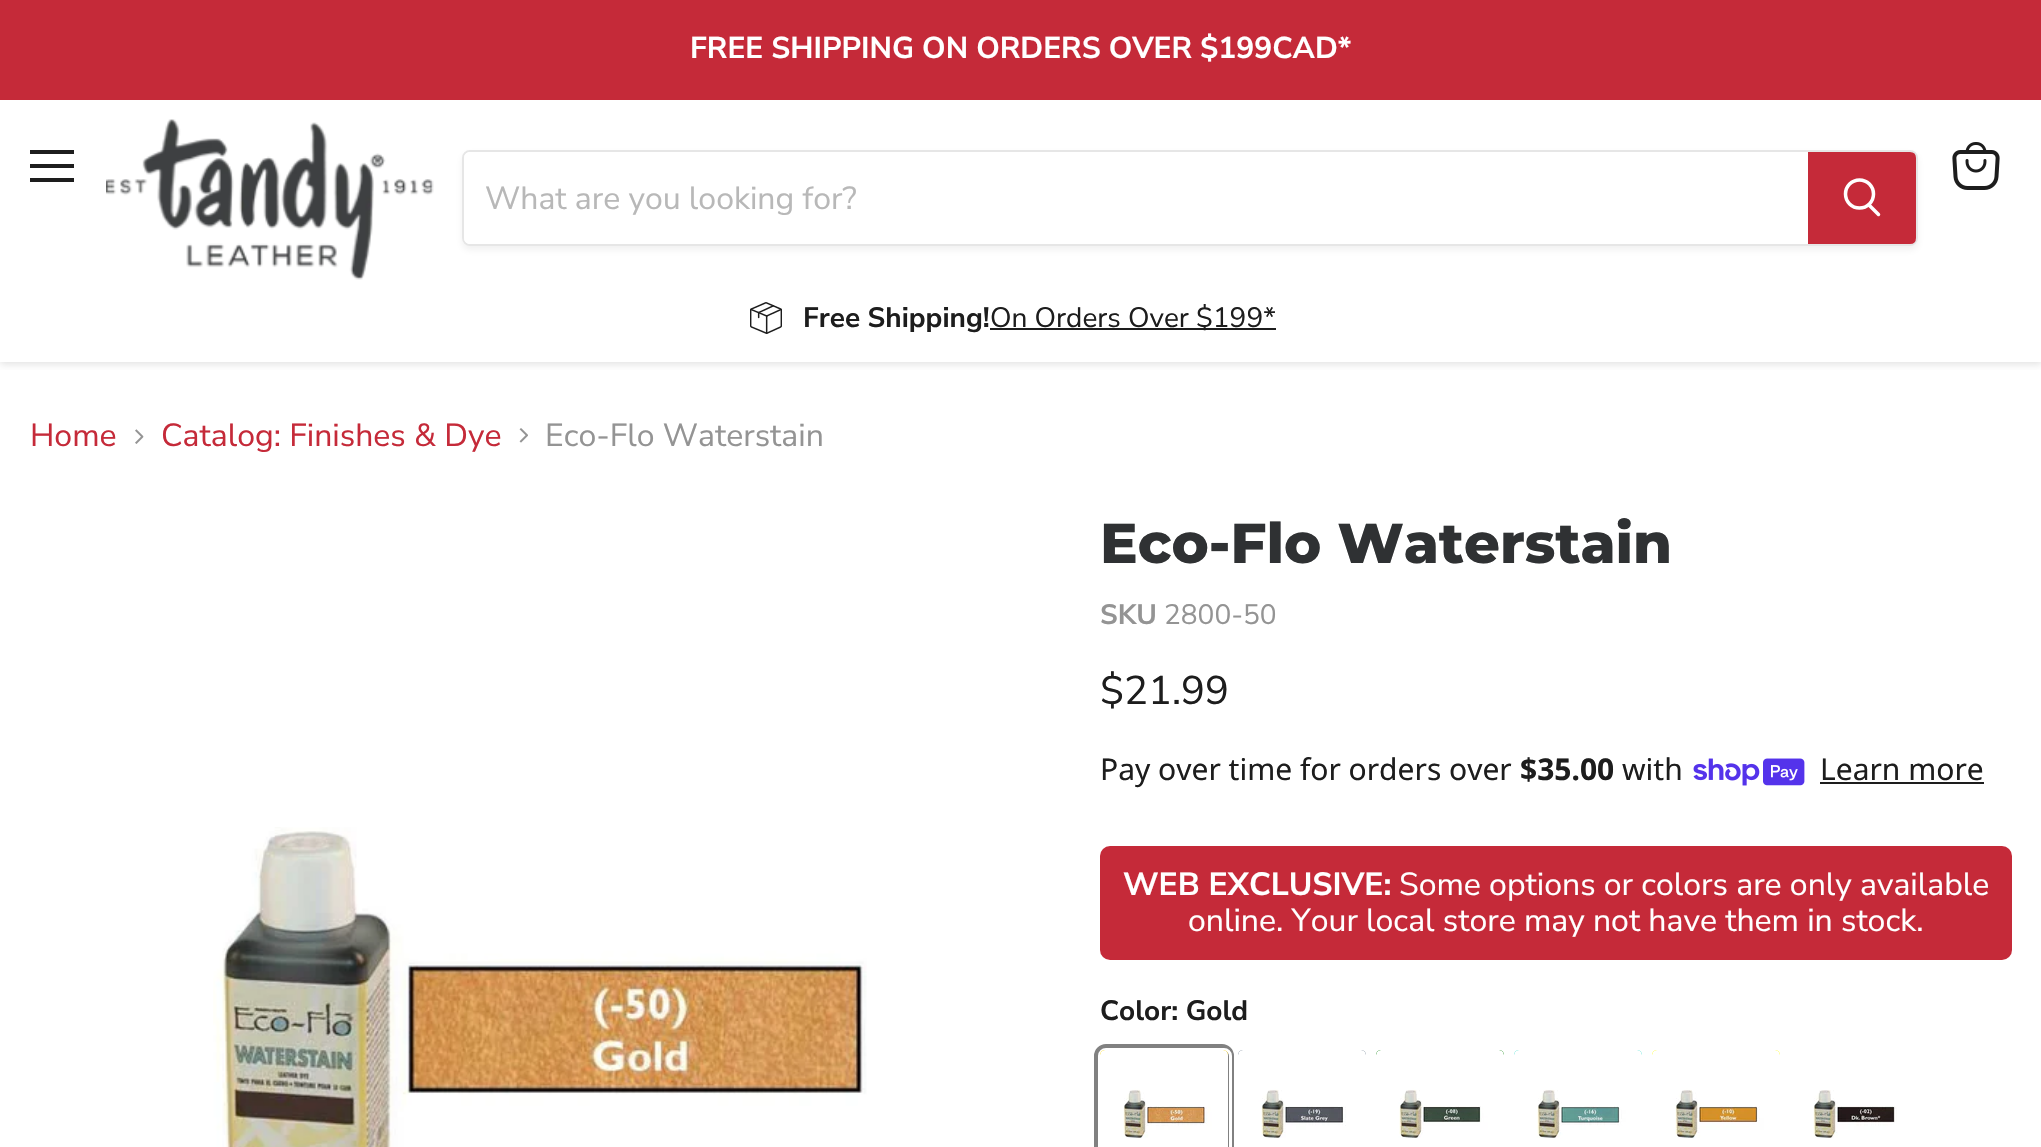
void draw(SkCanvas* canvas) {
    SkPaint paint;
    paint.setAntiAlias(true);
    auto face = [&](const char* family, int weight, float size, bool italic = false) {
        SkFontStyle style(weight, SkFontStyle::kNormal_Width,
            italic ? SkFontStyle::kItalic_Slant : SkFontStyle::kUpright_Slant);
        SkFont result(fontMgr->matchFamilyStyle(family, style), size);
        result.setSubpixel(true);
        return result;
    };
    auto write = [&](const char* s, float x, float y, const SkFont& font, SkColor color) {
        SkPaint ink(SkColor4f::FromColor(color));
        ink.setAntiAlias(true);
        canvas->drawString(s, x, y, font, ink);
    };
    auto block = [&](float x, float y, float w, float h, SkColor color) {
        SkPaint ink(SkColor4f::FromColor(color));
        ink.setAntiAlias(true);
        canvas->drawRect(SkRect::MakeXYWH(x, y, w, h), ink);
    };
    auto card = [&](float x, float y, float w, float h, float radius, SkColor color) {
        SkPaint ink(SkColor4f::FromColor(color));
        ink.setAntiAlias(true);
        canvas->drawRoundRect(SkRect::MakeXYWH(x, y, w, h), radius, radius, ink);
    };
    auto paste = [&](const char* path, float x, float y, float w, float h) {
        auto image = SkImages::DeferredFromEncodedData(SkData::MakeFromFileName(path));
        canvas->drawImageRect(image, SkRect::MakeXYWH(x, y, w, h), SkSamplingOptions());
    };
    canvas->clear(SK_ColorWHITE);
    canvas->save();
    canvas->clipRect(SkRect::MakeXYWH(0, 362, 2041, 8));
    paint.setColor(SkColorSetARGB(64, 128, 128, 128));
    paint.setMaskFilter(SkMaskFilter::MakeBlur(kNormal_SkBlurStyle, 4));
    canvas->drawRect(SkRect::MakeXYWH(0, 102, 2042, 262), paint);
    paint.setMaskFilter(nullptr);
    canvas->restore();
    block(0, 0, 2041, 100, SkColorSetRGB(197, 42, 57));
    auto kFont1 = face("Nunito Sans", 700, 30);
    write("FREE SHIPPING ON ORDERS OVER $199CAD*", 690, 58, kFont1, SK_ColorWHITE);
    block(30, 150, 44, 4, SkColorSetRGB(29, 29, 29));
    block(30, 164, 44, 4, SkColorSetRGB(29, 29, 29));
    block(30, 178, 44, 4, SkColorSetRGB(29, 29, 29));
    paste("pic1.png", 1952, 142, 48, 48);
    paste("pic2.png", 106, 119, 328, 161);
    canvas->save();
    canvas->clipPath(SkPathBuilder(SkPathFillType::kEvenOdd).moveTo(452, 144).lineTo(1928, 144).lineTo(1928, 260).lineTo(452, 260).close().moveTo(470, 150).lineTo(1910, 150).cubicTo(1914.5f, 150, 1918, 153.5f, 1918, 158).lineTo(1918, 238).cubicTo(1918, 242.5f, 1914.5f, 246, 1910, 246).lineTo(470, 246).cubicTo(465.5f, 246, 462, 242.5f, 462, 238).lineTo(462, 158).cubicTo(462, 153.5f, 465.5f, 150, 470, 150).close().detach(), true);
    paint.setColor(SkColorSetARGB(28, 128, 128, 128));
    paint.setMaskFilter(SkMaskFilter::MakeBlur(kNormal_SkBlurStyle, 3));
    canvas->drawRoundRect(SkRect::MakeXYWH(462, 154, 1456, 96), 8, 8, paint);
    paint.setMaskFilter(nullptr);
    canvas->restore();
    paint.setStyle(SkPaint::kStroke_Style);
    paint.setStrokeWidth(2);
    paint.setColor(SkColorSetARGB(51, 128, 128, 128));
    canvas->drawRoundRect(SkRect::MakeXYWH(463, 151, 1454, 94), 7, 7, paint);
    paint.setStyle(SkPaint::kFill_Style);
    paint.setColor(SK_ColorWHITE);
    canvas->drawPath(SkPathBuilder().moveTo(470, 152).lineTo(1808, 152).lineTo(1808, 244).lineTo(470, 244).cubicTo(466.5f, 244, 464, 241.5f, 464, 238).lineTo(464, 158).cubicTo(464, 154.5f, 466.5f, 152, 470, 152).close().detach(), paint);
    auto kFont2 = face("Nunito Sans", 400, 32);
    write("What are you looking for?", 485, 209, kFont2, SkColorSetRGB(184, 184, 184));
    paint.setColor(SkColorSetRGB(197, 42, 57));
    canvas->drawPath(SkPathBuilder().moveTo(1809, 153).lineTo(1910, 153).cubicTo(1913, 153, 1915, 155, 1915, 158).lineTo(1915, 238).cubicTo(1915, 241, 1913, 243, 1910, 243).lineTo(1809, 243).close().detach(), paint);
    paint.setStyle(SkPaint::kStroke_Style);
    canvas->drawPath(SkPathBuilder().moveTo(1809, 153).lineTo(1910, 153).cubicTo(1913, 153, 1915, 155, 1915, 158).lineTo(1915, 238).cubicTo(1915, 241, 1913, 243, 1910, 243).lineTo(1809, 243).close().detach(), paint);
    paint.setStrokeWidth(3.5f);
    paint.setStrokeCap(SkPaint::kRound_Cap);
    paint.setColor(SK_ColorWHITE);
    canvas->drawPath(SkPathBuilder().moveTo(1878.5f, 214.5f).lineTo(1869, 205).detach(), paint);
    paint.setStrokeCap(SkPaint::kButt_Cap);
    canvas->drawCircle(1859.5f, 194, 14, paint);
    paste("pic3.png", 750, 302, 32, 32);
    auto kFont3 = face("Nunito Sans", 700, 28);
    write("Free Shipping!", 803, 327, kFont3, SkColorSetRGB(29, 29, 29));
    block(990, 328, 286, 2, SkColorSetRGB(29, 29, 29));
    auto kFont4 = face("Nunito Sans", 400, 28);
    write("On Orders Over $199*", 990, 327, kFont4, SkColorSetRGB(29, 29, 29));
    write("Home", 30, 446, kFont2, SkColorSetRGB(197, 42, 57));
    paste("pic4.png", 135, 429, 9, 15);
    write("Catalog: Finishes & Dye", 161, 446, kFont2, SkColorSetRGB(197, 42, 57));
    paste("pic5.png", 519, 428, 9, 15);
    write("Eco-Flo Waterstain", 545, 446, kFont2, SkColorSetRGB(148, 148, 148));
    paste("pic6.png", 213, 827, 654, 320);
    auto kFont5 = face("Montserrat", 800, 56);
    write("Eco-Flo Waterstain", 1100, 563, kFont5, SkColorSetRGB(47, 49, 51));
    write("SKU", 1100, 624, kFont3, SkColorSetRGB(148, 148, 148));
    write("2800-50", 1164, 624, kFont4, SkColorSetRGB(148, 148, 148));
    auto kFont6 = face("Nunito Sans", 400, 40);
    write("$21.99", 1100, 704, kFont6, SkColorSetRGB(29, 29, 29));
    auto kFont7 = face("Noto Sans", 400, 30);
    write("Pay over time for orders over", 1100, 780, kFont7, SkColorSetRGB(29, 29, 29));
    auto kFont8 = face("Noto Sans", 700, 30);
    write("$35.00", 1520, 780, kFont8, SkColorSetRGB(29, 29, 29));
    write("with", 1622, 780, kFont7, SkColorSetRGB(29, 29, 29));
    paste("pic7.png", 1693, 758, 112, 28);
    write("Learn more", 1820, 780, kFont7, SkColorSetRGB(29, 29, 29));
    block(1820, 782, 164, 2, SkColorSetRGB(29, 29, 29));
    card(1100, 846, 912, 114, 10, SkColorSetRGB(197, 42, 57));
    auto kFont9 = face("Nunito Sans", 700, 32);
    write("WEB EXCLUSIVE:", 1123, 895, kFont9, SK_ColorWHITE);
    write("Some options or colors are only available", 1399, 895, kFont2, SK_ColorWHITE);
    write("online. Your local store may not have them in stock.", 1188, 931, kFont2, SK_ColorWHITE);
    write("Color: Gold", 1100, 1020, kFont3, SkColorSetRGB(29, 29, 29));
    paint.setStrokeWidth(6);
    paint.setColor(SkColorSetRGB(129, 129, 129));
    canvas->drawRoundRect(SkRect::MakeXYWH(1097, 1047, 134, 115), 9, 9, paint);
    paint.setStrokeWidth(3);
    paint.setColor(SK_ColorWHITE);
    canvas->drawRoundRect(SkRect::MakeXYWH(1099.5f, 1049.5f, 131, 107), 6.5f, 6.5f, paint);
    card(1100, 1050, 128, 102, 5, SkColorSetRGB(255, 215, 0));
    paste("pic8.png", 1100, 1050, 128, 97);
    card(1238, 1050, 128, 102, 5, SkColorSetRGB(112, 128, 144));
    paste("pic9.png", 1238, 1050, 128, 97);
    card(1376, 1050, 128, 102, 5, SkColorSetRGB(0, 128, 0));
    paste("pic10.png", 1376, 1050, 128, 97);
    card(1514, 1050, 128, 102, 5, SkColorSetRGB(64, 224, 208));
    paste("pic11.png", 1514, 1050, 128, 97);
    card(1652, 1050, 128, 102, 5, SkColorSetRGB(255, 255, 0));
    paste("pic12.png", 1652, 1050, 128, 97);
    paste("pic13.png", 1813, 1090, 84, 48);
}
